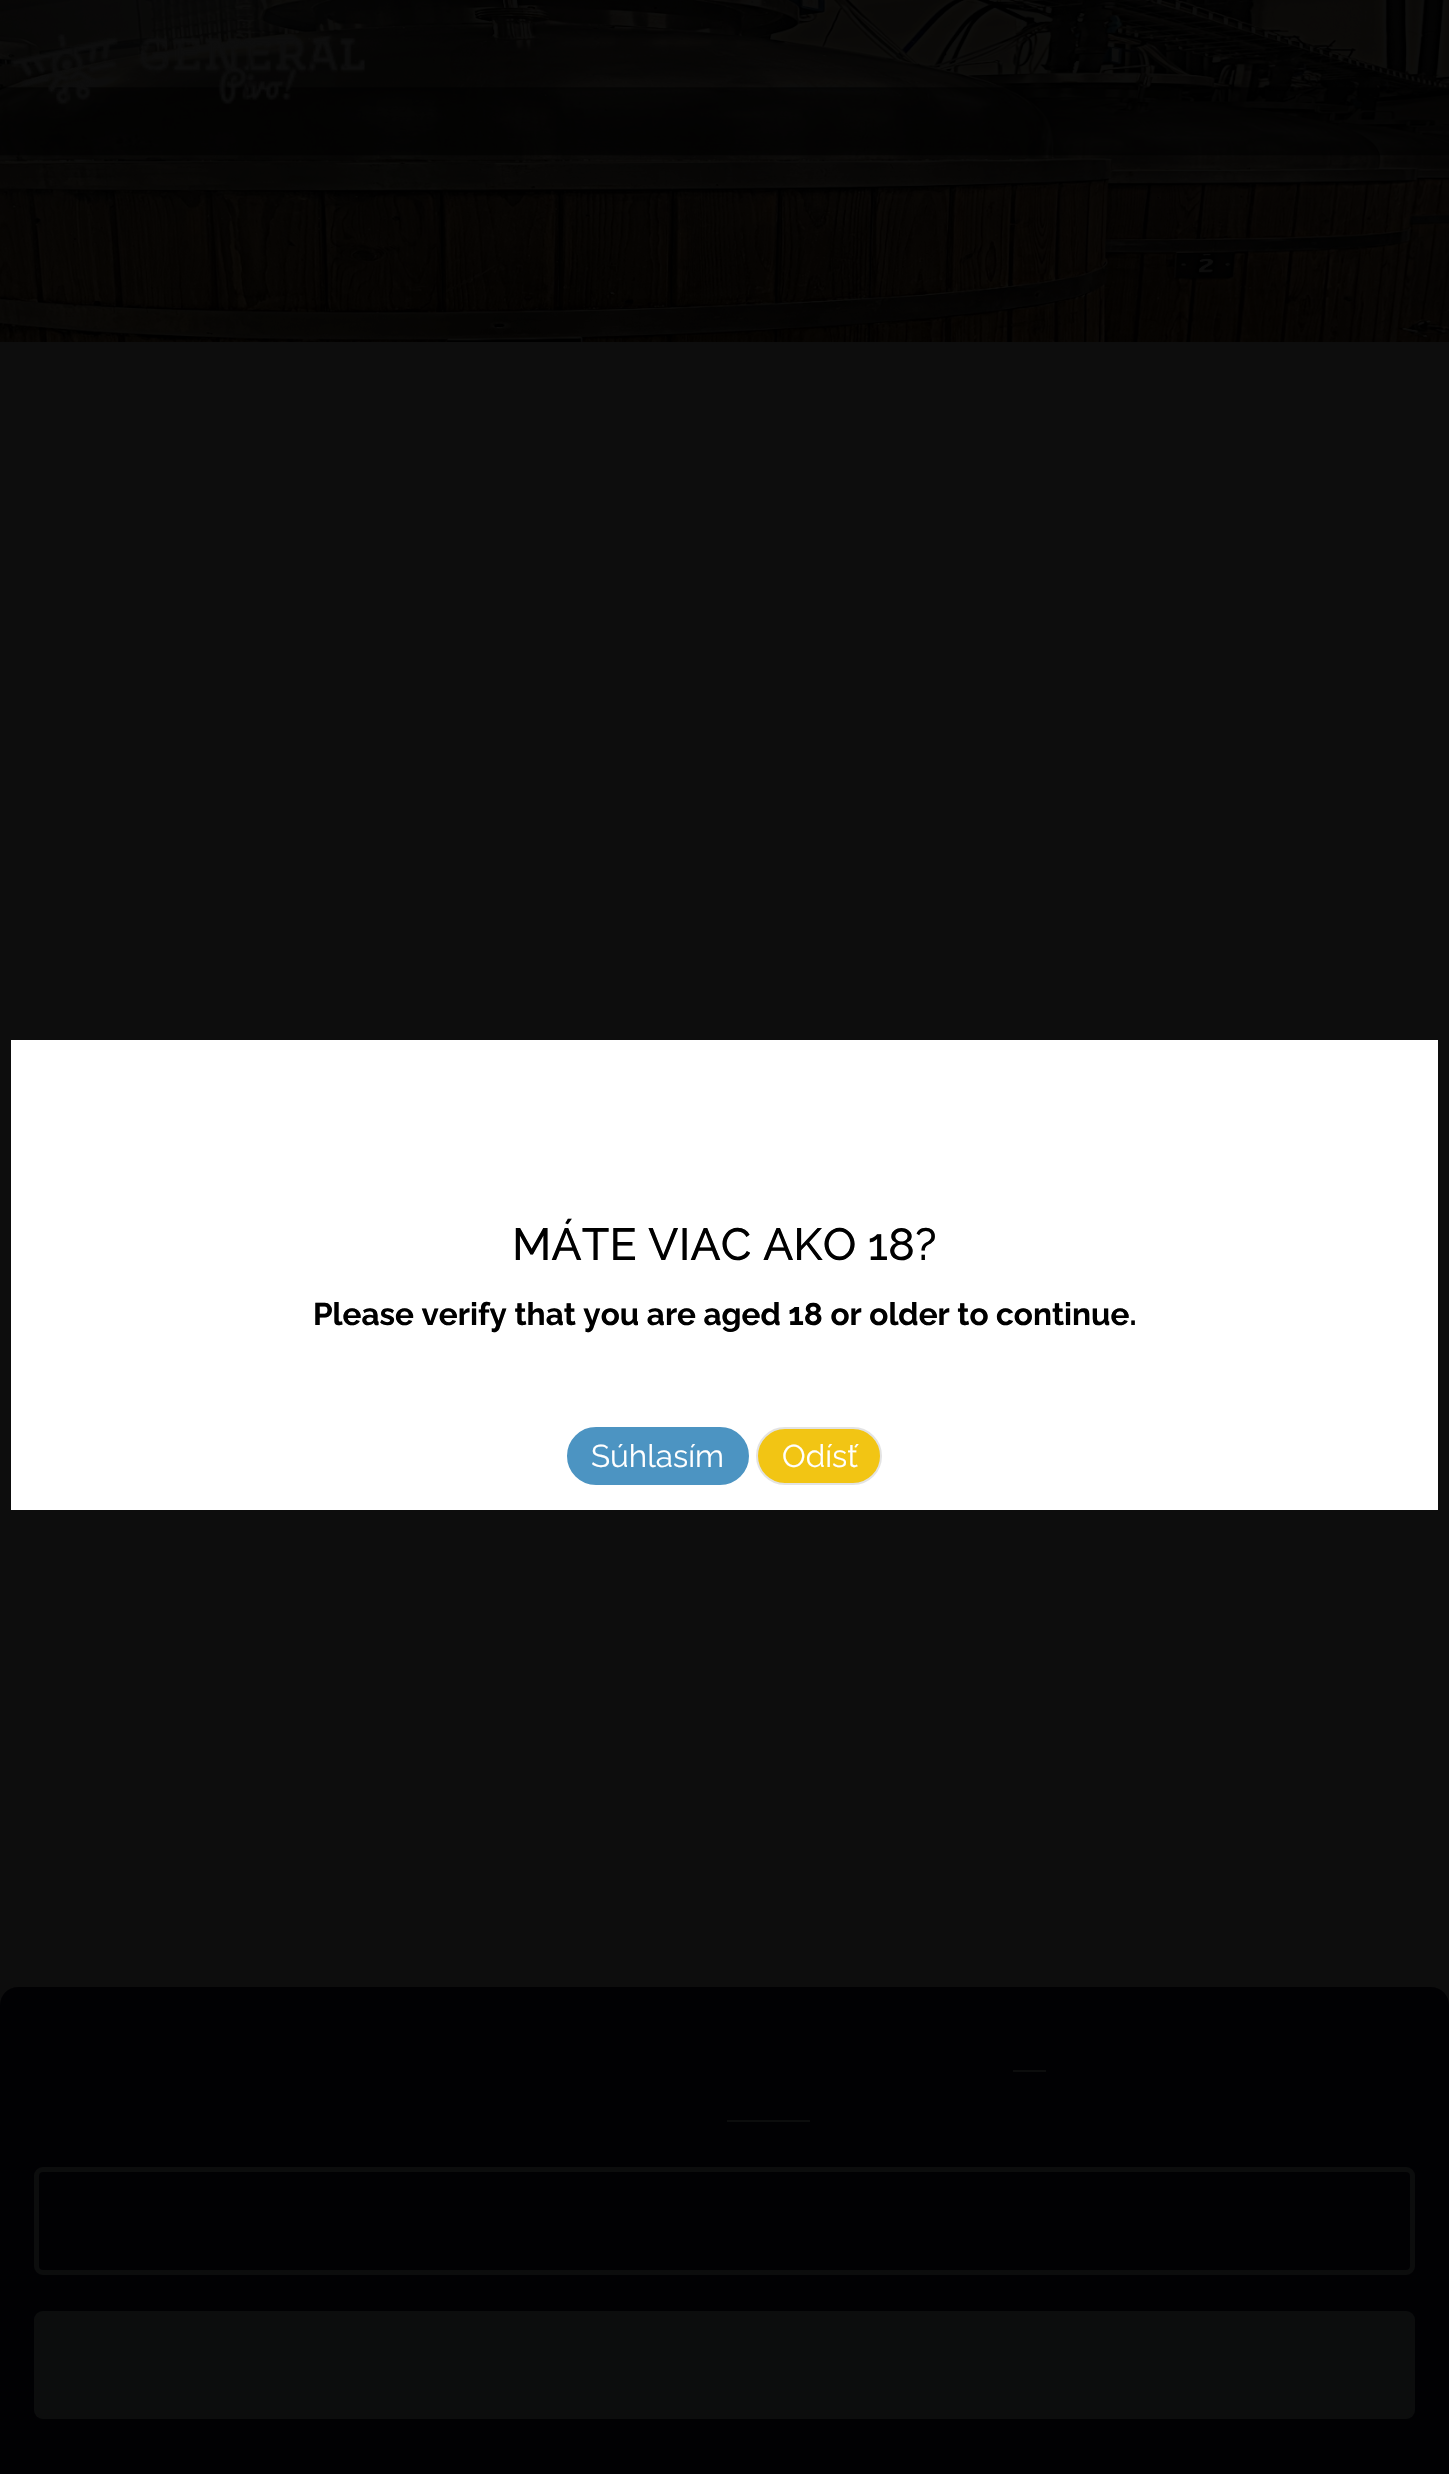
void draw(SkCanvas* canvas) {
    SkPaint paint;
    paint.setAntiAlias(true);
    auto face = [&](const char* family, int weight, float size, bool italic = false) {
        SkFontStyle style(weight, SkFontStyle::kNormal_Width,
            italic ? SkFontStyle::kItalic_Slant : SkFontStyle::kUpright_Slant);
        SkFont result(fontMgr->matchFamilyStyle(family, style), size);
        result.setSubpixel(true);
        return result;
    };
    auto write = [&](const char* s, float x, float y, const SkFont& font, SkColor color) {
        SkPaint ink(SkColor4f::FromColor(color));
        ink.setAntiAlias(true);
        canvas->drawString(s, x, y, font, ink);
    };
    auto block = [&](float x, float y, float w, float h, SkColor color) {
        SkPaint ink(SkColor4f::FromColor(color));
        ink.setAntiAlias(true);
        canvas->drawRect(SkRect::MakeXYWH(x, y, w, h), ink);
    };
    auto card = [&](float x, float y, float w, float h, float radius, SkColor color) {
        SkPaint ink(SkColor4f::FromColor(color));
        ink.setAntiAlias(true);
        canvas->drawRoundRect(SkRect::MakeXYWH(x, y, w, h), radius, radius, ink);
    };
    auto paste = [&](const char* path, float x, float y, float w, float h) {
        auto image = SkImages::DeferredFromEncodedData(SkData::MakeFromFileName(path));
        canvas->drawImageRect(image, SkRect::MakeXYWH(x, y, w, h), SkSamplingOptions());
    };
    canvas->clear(SkColorSetRGB(13, 13, 13));
    paste("pic1.png", 0, 0, 1449, 342);
    paste("pic2.png", 11, 34, 354, 71);
    block(11, 1040, 1427, 470, SK_ColorWHITE);
    auto kFont1 = face("Raleway", 500, 45);
    write("MÁTE VIAC AKO 18?", 512, 1260, kFont1, SK_ColorBLACK);
    auto kFont2 = face("Raleway", 700, 31.5f);
    write("Please verify that you are aged 18 or older to continue.", 313, 1325, kFont2, SK_ColorBLACK);
    paint.setColor(SkColorSetRGB(76, 148, 194));
    canvas->drawRoundRect(SkRect::MakeXYWH(568, 1428, 180, 56), 28, 28, paint);
    paint.setStyle(SkPaint::kStroke_Style);
    paint.setStrokeWidth(2);
    canvas->drawRoundRect(SkRect::MakeXYWH(568, 1428, 180, 56), 28, 28, paint);
    auto kFont3 = face("Raleway", 400, 31.5f);
    write("Súhlasím", 591, 1467, kFont3, SK_ColorWHITE);
    paint.setStyle(SkPaint::kFill_Style);
    paint.setColor(SkColorSetRGB(242, 197, 20));
    canvas->drawRoundRect(SkRect::MakeXYWH(757, 1428, 124, 56), 28, 28, paint);
    paint.setStyle(SkPaint::kStroke_Style);
    paint.setColor(SkColorSetRGB(227, 227, 227));
    canvas->drawRoundRect(SkRect::MakeXYWH(757, 1428, 124, 56), 28, 28, paint);
    write("Odísť", 782, 1467, kFont3, SK_ColorWHITE);
    paint.setStyle(SkPaint::kFill_Style);
    paint.setColor(SkColorSetRGB(1, 1, 3));
    canvas->drawPath(SkPathBuilder().moveTo(18, 1987).lineTo(1431, 1987).cubicTo(1441, 1987, 1449, 1995, 1449, 2005).lineTo(1449, 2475).lineTo(0, 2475).lineTo(0, 2005).cubicTo(0, 1995, 8, 1987, 18, 1987).close().detach(), paint);
    block(1013, 2070, 33, 2, SkColorSetRGB(12, 13, 13));
    block(727, 2120, 83, 2, SkColorSetRGB(12, 13, 13));
    paint.setStyle(SkPaint::kStroke_Style);
    paint.setStrokeWidth(5);
    paint.setColor(SkColorSetRGB(12, 13, 13));
    canvas->drawRoundRect(SkRect::MakeXYWH(36.5f, 2169.5f, 1376, 103), 6.5f, 6.5f, paint);
    card(34, 2311, 1381, 108, 9, SkColorSetRGB(12, 13, 13));
}
